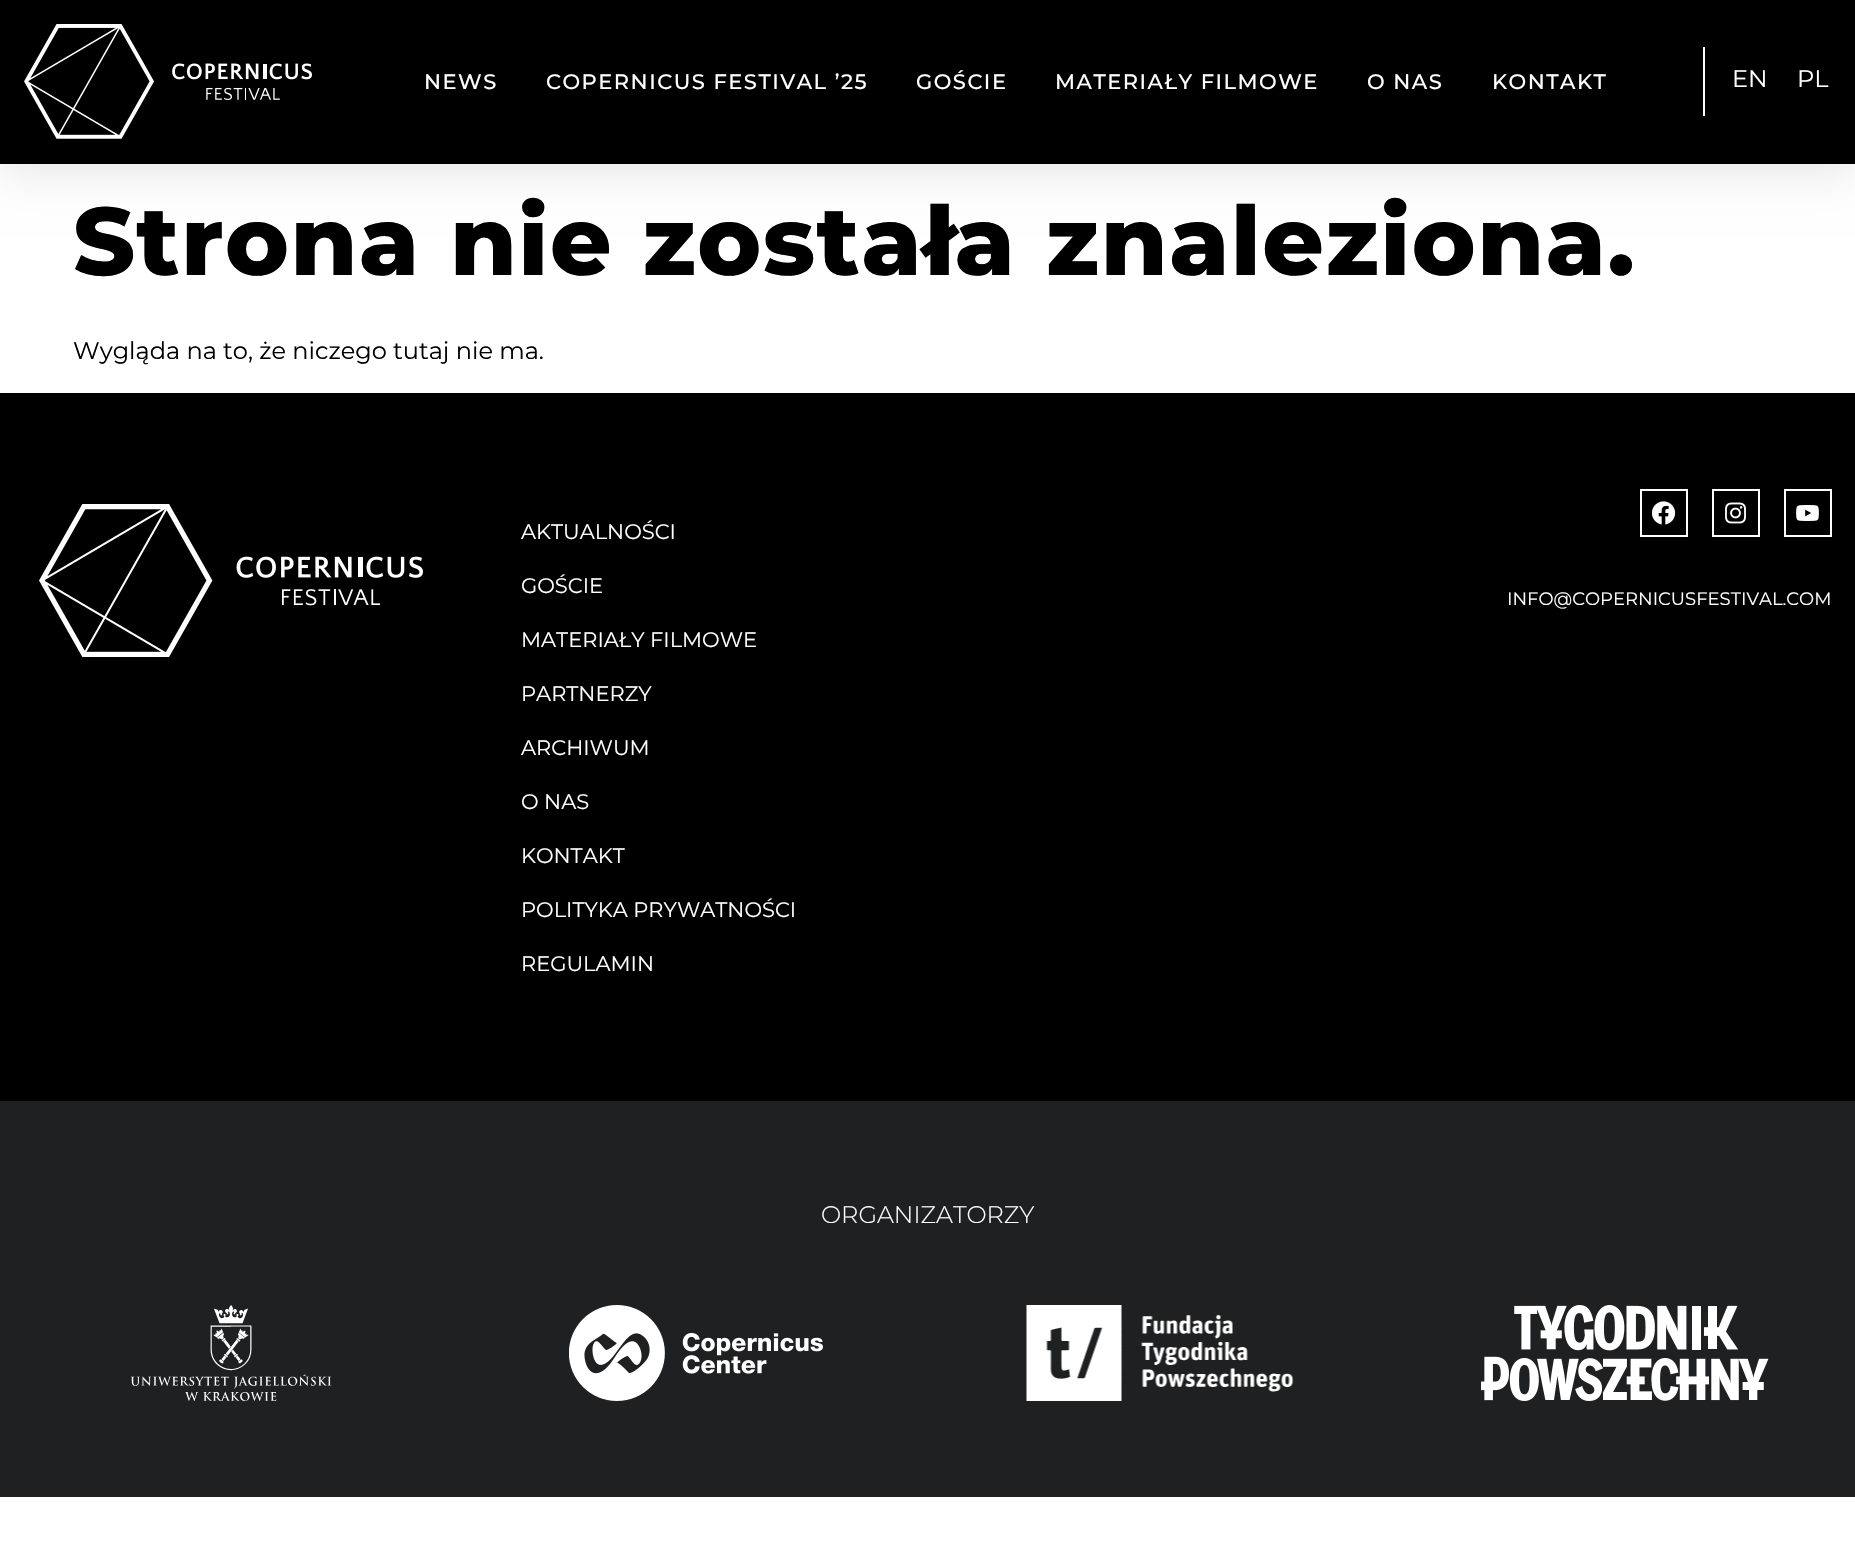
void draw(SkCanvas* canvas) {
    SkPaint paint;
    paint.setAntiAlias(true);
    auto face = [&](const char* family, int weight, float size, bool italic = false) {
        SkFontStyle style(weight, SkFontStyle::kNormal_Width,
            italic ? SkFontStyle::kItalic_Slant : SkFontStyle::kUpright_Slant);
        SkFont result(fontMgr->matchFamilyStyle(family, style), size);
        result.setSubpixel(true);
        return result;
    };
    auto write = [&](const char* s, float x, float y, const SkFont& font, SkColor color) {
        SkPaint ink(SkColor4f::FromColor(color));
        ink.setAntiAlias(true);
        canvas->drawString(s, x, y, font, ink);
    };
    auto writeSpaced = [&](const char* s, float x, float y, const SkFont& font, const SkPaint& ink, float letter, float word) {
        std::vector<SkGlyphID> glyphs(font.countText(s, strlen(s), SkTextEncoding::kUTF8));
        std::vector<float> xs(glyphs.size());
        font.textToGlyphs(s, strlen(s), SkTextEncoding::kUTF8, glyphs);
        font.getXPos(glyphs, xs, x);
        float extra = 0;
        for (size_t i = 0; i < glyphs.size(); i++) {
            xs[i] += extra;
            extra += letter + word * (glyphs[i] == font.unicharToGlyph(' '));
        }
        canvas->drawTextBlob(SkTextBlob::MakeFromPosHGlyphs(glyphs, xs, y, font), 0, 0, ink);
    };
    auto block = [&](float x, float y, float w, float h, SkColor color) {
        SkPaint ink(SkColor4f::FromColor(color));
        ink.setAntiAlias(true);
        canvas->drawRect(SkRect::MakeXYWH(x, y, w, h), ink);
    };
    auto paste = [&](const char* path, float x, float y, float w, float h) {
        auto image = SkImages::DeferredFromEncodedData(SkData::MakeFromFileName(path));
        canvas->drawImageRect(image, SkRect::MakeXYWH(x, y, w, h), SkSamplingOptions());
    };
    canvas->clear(SK_ColorWHITE);
    paint.setColor(SkColorSetARGB(26, 0, 0, 0));
    paint.setMaskFilter(SkMaskFilter::MakeBlur(kNormal_SkBlurStyle, 22.5f));
    canvas->drawRect(SkRect::MakeXYWH(0, 8, 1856, 163), paint);
    paint.setMaskFilter(nullptr);
    block(0, 0, 1855, 164, SK_ColorBLACK);
    paste("pic1.png", 24, 24, 288, 115);
    auto kFont1 = face("Montserrat", 500, 21);
    paint.setColor(SK_ColorWHITE);
    writeSpaced("NEWS", 424, 89, kFont1, paint, 1.5f, 0);
    writeSpaced("COPERNICUS FESTIVAL ’25", 546, 89, kFont1, paint, 1.5f, 0);
    writeSpaced("GOŚCIE", 916, 89, kFont1, paint, 1.5f, 0);
    writeSpaced("MATERIAŁY FILMOWE", 1055, 89, kFont1, paint, 1.5f, 0);
    writeSpaced("O NAS", 1367, 89, kFont1, paint, 1.5f, 0);
    writeSpaced("KONTAKT", 1492, 89, kFont1, paint, 1.5f, 0);
    block(1703, 47, 2, 69, SK_ColorWHITE);
    auto kFont2 = face("Montserrat", 400, 24);
    write("EN", 1732, 87, kFont2, SK_ColorWHITE);
    write("PL", 1797, 87, kFont2, SK_ColorWHITE);
    auto kFont3 = face("Montserrat", 800, 96);
    paint.setColor(SK_ColorBLACK);
    writeSpaced("Strona nie została znaleziona.", 73, 275, kFont3, paint, 1.5f, 0);
    write("Wygląda na to, że niczego tutaj nie ma.", 73, 359, kFont2, SK_ColorBLACK);
    block(0, 393, 1855, 708, SK_ColorBLACK);
    paste("pic2.png", 39, 504, 384, 153);
    auto kFont4 = face("Montserrat", 400, 21);
    write("AKTUALNOŚCI", 521, 539, kFont4, SK_ColorWHITE);
    write("GOŚCIE", 521, 593, kFont4, SK_ColorWHITE);
    write("MATERIAŁY FILMOWE", 521, 647, kFont4, SK_ColorWHITE);
    write("PARTNERZY", 521, 701, kFont4, SK_ColorWHITE);
    write("ARCHIWUM", 521, 755, kFont4, SK_ColorWHITE);
    write("O NAS", 521, 809, kFont4, SK_ColorWHITE);
    write("KONTAKT", 521, 863, kFont4, SK_ColorWHITE);
    write("POLITYKA PRYWATNOŚCI", 521, 917, kFont4, SK_ColorWHITE);
    write("REGULAMIN", 521, 971, kFont4, SK_ColorWHITE);
    paint.setStyle(SkPaint::kStroke_Style);
    paint.setStrokeWidth(2);
    paint.setColor(SK_ColorWHITE);
    canvas->drawRect(SkRect::MakeXYWH(1641, 490, 46, 46), paint);
    paste("pic3.png", 1652, 501, 24, 24);
    canvas->drawRect(SkRect::MakeXYWH(1713, 490, 46, 46), paint);
    paste("pic4.png", 1725, 502, 21, 22);
    canvas->drawRect(SkRect::MakeXYWH(1785, 490, 46, 46), paint);
    paste("pic5.png", 1796, 505, 23, 16);
    auto kFont5 = face("Montserrat", 400, 18);
    write("INFO@COPERNICUSFESTIVAL.COM", 1507, 605, kFont5, SK_ColorWHITE);
    block(0, 1101, 1855, 396, SkColorSetRGB(31, 32, 33));
    auto kFont6 = face("Montserrat", 300, 24);
    write("ORGANIZATORZY", 821, 1223, kFont6, SK_ColorWHITE);
    paste("pic6.png", 131, 1305, 201, 96);
    paste("pic7.png", 569, 1305, 254, 96);
    paste("pic8.png", 1026, 1305, 268, 96);
    paste("pic9.png", 1481, 1305, 288, 96);
}
